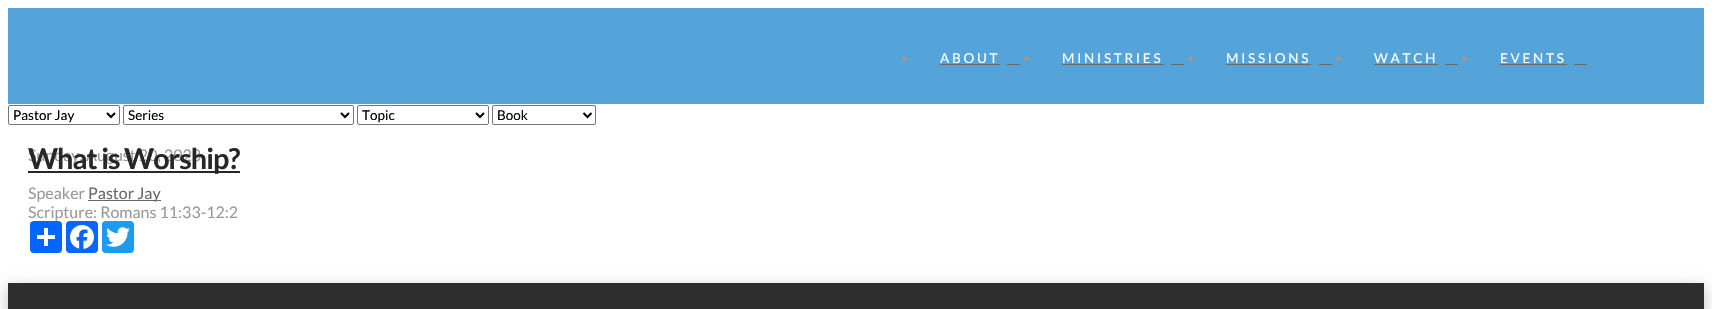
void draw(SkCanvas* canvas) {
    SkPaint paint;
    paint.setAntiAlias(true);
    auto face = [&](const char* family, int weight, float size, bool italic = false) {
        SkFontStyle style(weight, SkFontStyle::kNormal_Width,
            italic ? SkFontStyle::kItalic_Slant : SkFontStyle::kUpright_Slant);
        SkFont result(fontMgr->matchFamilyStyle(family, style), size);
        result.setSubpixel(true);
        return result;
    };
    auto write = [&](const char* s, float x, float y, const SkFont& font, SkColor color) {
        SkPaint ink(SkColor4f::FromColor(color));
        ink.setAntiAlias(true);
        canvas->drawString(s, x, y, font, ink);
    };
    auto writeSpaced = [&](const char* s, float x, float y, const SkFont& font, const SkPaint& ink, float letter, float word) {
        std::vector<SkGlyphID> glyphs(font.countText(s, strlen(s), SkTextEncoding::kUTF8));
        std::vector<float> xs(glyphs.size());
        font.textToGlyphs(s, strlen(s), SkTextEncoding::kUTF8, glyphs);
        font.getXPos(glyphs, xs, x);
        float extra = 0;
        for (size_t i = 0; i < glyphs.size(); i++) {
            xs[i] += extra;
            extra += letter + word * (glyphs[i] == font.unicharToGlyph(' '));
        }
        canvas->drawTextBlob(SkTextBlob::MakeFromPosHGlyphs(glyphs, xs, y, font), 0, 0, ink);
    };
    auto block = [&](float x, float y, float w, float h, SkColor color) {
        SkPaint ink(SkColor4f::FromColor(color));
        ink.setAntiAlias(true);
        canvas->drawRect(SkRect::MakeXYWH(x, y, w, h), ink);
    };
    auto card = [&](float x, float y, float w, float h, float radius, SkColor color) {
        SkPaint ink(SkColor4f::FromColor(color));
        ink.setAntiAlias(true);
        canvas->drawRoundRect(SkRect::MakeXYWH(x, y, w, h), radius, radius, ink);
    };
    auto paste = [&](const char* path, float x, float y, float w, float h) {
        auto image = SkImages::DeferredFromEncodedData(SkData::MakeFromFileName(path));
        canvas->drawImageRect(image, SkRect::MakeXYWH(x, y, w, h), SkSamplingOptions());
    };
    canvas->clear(SK_ColorWHITE);
    block(8, 8, 1696, 96, SkColorSetRGB(84, 164, 217));
    paint.setColor(SkColorSetRGB(153, 153, 153));
    canvas->drawCircle(904.5f, 58.5f, 2.5f, paint);
    auto kFont1 = face("Lato", 400, 13.5f);
    paint.setColor(SK_ColorWHITE);
    writeSpaced("ABOUT", 940, 63, kFont1, paint, 2.75f, 0);
    block(940, 64, 60, 1, SkColorSetRGB(105, 105, 105));
    block(1007, 64, 13, 1, SkColorSetRGB(105, 105, 105));
    paint.setColor(SkColorSetRGB(153, 153, 153));
    canvas->drawCircle(1026.5f, 58.5f, 2.5f, paint);
    paint.setColor(SK_ColorWHITE);
    writeSpaced("MINISTRIES", 1062, 63, kFont1, paint, 2.75f, 0);
    block(1062, 64, 102, 1, SkColorSetRGB(105, 105, 105));
    block(1171, 64, 13, 1, SkColorSetRGB(105, 105, 105));
    paint.setColor(SkColorSetRGB(153, 153, 153));
    canvas->drawCircle(1190.5f, 58.5f, 2.5f, paint);
    paint.setColor(SK_ColorWHITE);
    writeSpaced("MISSIONS", 1226, 63, kFont1, paint, 2.75f, 0);
    block(1226, 64, 85, 1, SkColorSetRGB(105, 105, 105));
    block(1319, 64, 13, 1, SkColorSetRGB(105, 105, 105));
    paint.setColor(SkColorSetRGB(153, 153, 153));
    canvas->drawCircle(1338.5f, 58.5f, 2.5f, paint);
    paint.setColor(SK_ColorWHITE);
    writeSpaced("WATCH", 1374, 63, kFont1, paint, 2.75f, 0);
    block(1374, 64, 64, 1, SkColorSetRGB(105, 105, 105));
    block(1445, 64, 13, 1, SkColorSetRGB(105, 105, 105));
    paint.setColor(SkColorSetRGB(153, 153, 153));
    canvas->drawCircle(1464.5f, 58.5f, 2.5f, paint);
    paint.setColor(SK_ColorWHITE);
    writeSpaced("EVENTS", 1500, 63, kFont1, paint, 2.75f, 0);
    block(1500, 64, 67, 1, SkColorSetRGB(105, 105, 105));
    block(1574, 64, 13, 1, SkColorSetRGB(105, 105, 105));
    paint.setStyle(SkPaint::kStroke_Style);
    paint.setStrokeWidth(1);
    paint.setColor(SkColorSetRGB(118, 118, 118));
    canvas->drawRoundRect(SkRect::MakeXYWH(8.5f, 105.5f, 111, 19), 1.5f, 1.5f, paint);
    paint.setStrokeWidth(2);
    paint.setColor(SK_ColorBLACK);
    canvas->drawPath(SkPathBuilder().moveTo(107, 113).lineTo(111, 117).lineTo(115, 113).detach(), paint);
    write("Pastor Jay", 13, 120, kFont1, SK_ColorBLACK);
    paint.setStrokeWidth(1);
    paint.setColor(SkColorSetRGB(118, 118, 118));
    canvas->drawRoundRect(SkRect::MakeXYWH(123.5f, 105.5f, 230, 19), 1.5f, 1.5f, paint);
    paint.setStrokeWidth(2);
    paint.setColor(SK_ColorBLACK);
    canvas->drawPath(SkPathBuilder().moveTo(341, 113).lineTo(345, 117).lineTo(349, 113).detach(), paint);
    write("Series", 128, 120, kFont1, SK_ColorBLACK);
    paint.setStrokeWidth(1);
    paint.setColor(SkColorSetRGB(118, 118, 118));
    canvas->drawRoundRect(SkRect::MakeXYWH(357.5f, 105.5f, 131, 19), 1.5f, 1.5f, paint);
    paint.setStrokeWidth(2);
    paint.setColor(SK_ColorBLACK);
    canvas->drawPath(SkPathBuilder().moveTo(476, 113).lineTo(480, 117).lineTo(484, 113).detach(), paint);
    write("Topic", 362, 120, kFont1, SK_ColorBLACK);
    paint.setStrokeWidth(1);
    paint.setColor(SkColorSetRGB(118, 118, 118));
    canvas->drawRoundRect(SkRect::MakeXYWH(492.5f, 105.5f, 103, 19), 1.5f, 1.5f, paint);
    paint.setStrokeWidth(2);
    paint.setColor(SK_ColorBLACK);
    canvas->drawPath(SkPathBuilder().moveTo(583.5f, 113).lineTo(587.5f, 117).lineTo(591.5f, 113).detach(), paint);
    write("Book", 497, 120, kFont1, SK_ColorBLACK);
    block(28, 171, 212, 2, SkColorSetRGB(39, 39, 39));
    auto kFont2 = face("Lato", 400, 16);
    write("Sunday, August 20, 2023", 28, 161, kFont2, SkColorSetRGB(153, 153, 153));
    auto kFont3 = face("Lato", 700, 28.75f);
    paint.setStyle(SkPaint::kFill_Style);
    paint.setColor(SkColorSetRGB(39, 39, 39));
    writeSpaced("What is Worship?", 28, 169, kFont3, paint, -1, 0);
    write("Speaker", 28, 199, kFont2, SkColorSetRGB(153, 153, 153));
    block(88, 200, 73, 1, SkColorSetRGB(105, 105, 105));
    write("Pastor Jay", 88, 199, kFont2, SkColorSetRGB(105, 105, 105));
    write("Scripture: Romans 11:33-12:2", 28, 218, kFont2, SkColorSetRGB(153, 153, 153));
    card(30, 221, 32, 32, 4, SkColorSetRGB(1, 102, 255));
    block(44, 228, 4, 18, SK_ColorWHITE);
    block(37, 235, 18, 4, SK_ColorWHITE);
    card(66, 221, 32, 32, 4, SkColorSetRGB(8, 102, 255));
    paste("pic1.png", 70, 225, 24, 24);
    card(102, 221, 32, 32, 4, SkColorSetRGB(29, 155, 240));
    paste("pic2.png", 106, 227, 24, 20);
    paint.setColor(SkColorSetARGB(64, 0, 0, 0));
    paint.setMaskFilter(SkMaskFilter::MakeBlur(kNormal_SkBlurStyle, 8));
    canvas->drawRect(SkRect::MakeXYWH(8, 288, 1696, 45), paint);
    paint.setMaskFilter(nullptr);
    block(8, 283, 1696, 26, SkColorSetRGB(46, 46, 46));
}
